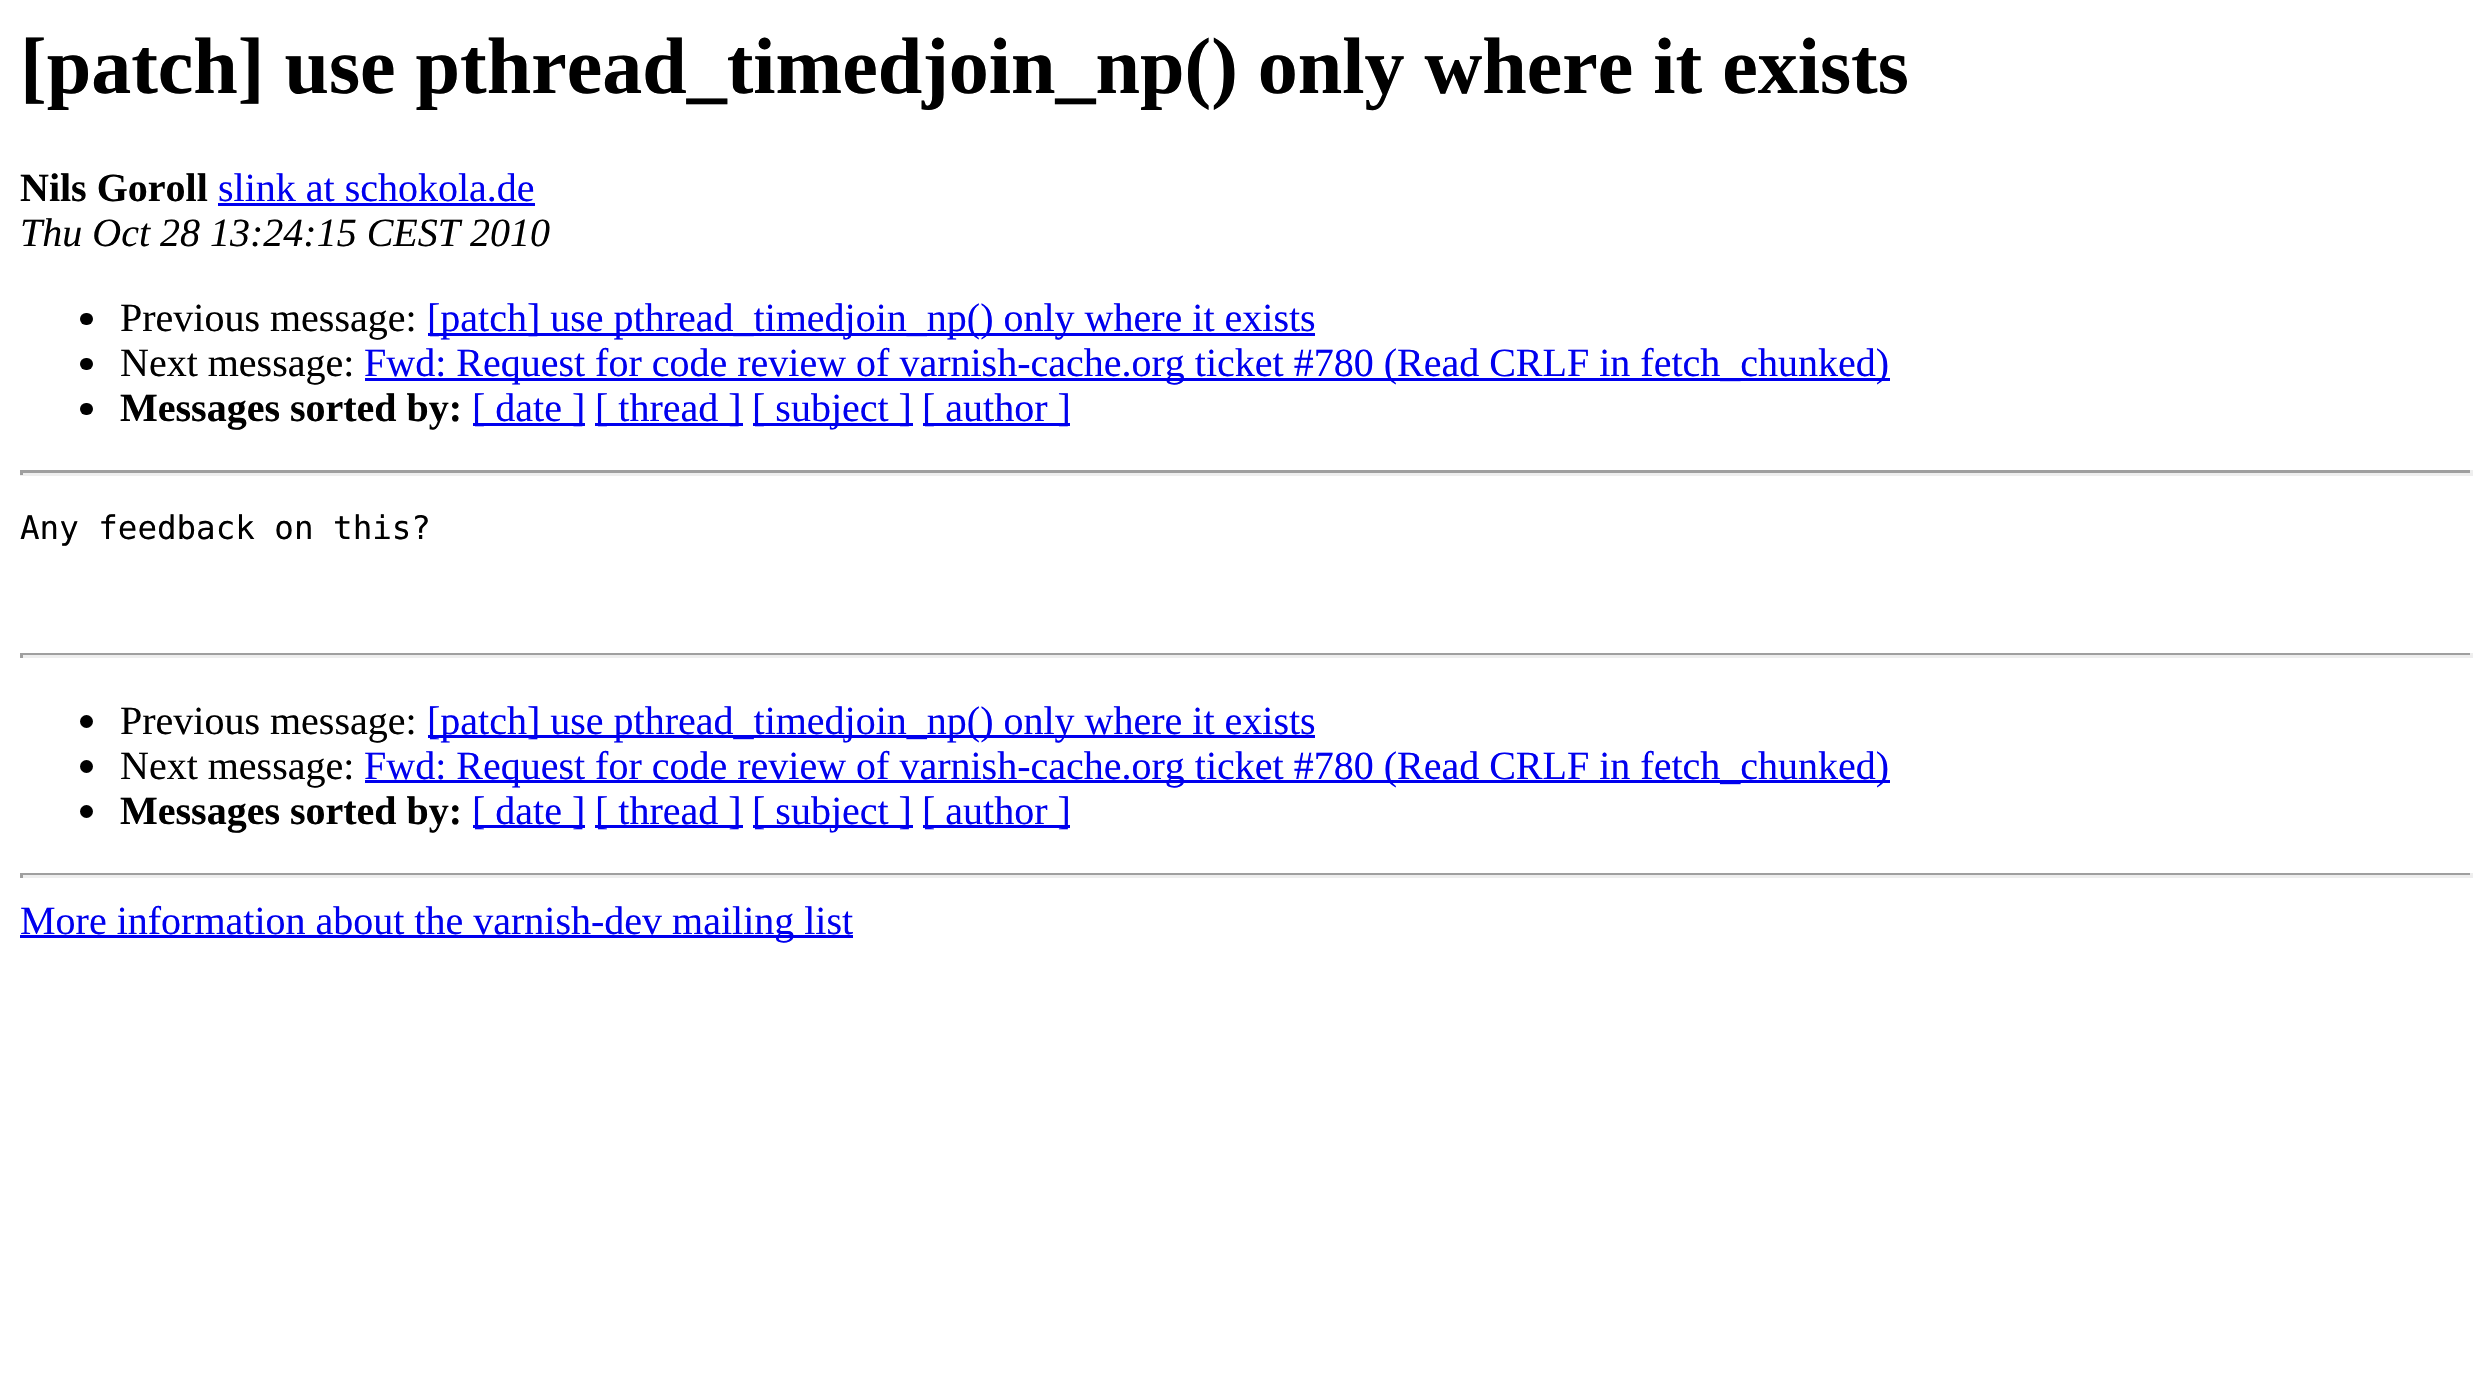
void draw(SkCanvas* canvas) {
    SkPaint paint;
    paint.setAntiAlias(true);
    auto face = [&](const char* family, int weight, float size, bool italic = false) {
        SkFontStyle style(weight, SkFontStyle::kNormal_Width,
            italic ? SkFontStyle::kItalic_Slant : SkFontStyle::kUpright_Slant);
        SkFont result(fontMgr->matchFamilyStyle(family, style), size);
        result.setSubpixel(true);
        return result;
    };
    auto write = [&](const char* s, float x, float y, const SkFont& font, SkColor color) {
        SkPaint ink(SkColor4f::FromColor(color));
        ink.setAntiAlias(true);
        canvas->drawString(s, x, y, font, ink);
    };
    auto block = [&](float x, float y, float w, float h, SkColor color) {
        SkPaint ink(SkColor4f::FromColor(color));
        ink.setAntiAlias(true);
        canvas->drawRect(SkRect::MakeXYWH(x, y, w, h), ink);
    };
    auto card = [&](float x, float y, float w, float h, float radius, SkColor color) {
        SkPaint ink(SkColor4f::FromColor(color));
        ink.setAntiAlias(true);
        canvas->drawRoundRect(SkRect::MakeXYWH(x, y, w, h), radius, radius, ink);
    };
    canvas->clear(SK_ColorWHITE);
    auto kFont1 = face("Liberation Serif", 700, 80);
    write("[patch] use pthread_timedjoin_np() only where it exists", 20, 93, kFont1, SK_ColorBLACK);
    auto kFont2 = face("Liberation Serif", 700, 40);
    write("Nils Goroll", 20, 201, kFont2, SK_ColorBLACK);
    auto kFont3 = face("Liberation Serif", 400, 40);
    write("slink at schokola.de", 218, 201, kFont3, SkColorSetRGB(0, 0, 238));
    block(218, 203, 317, 3, SkColorSetRGB(0, 0, 238));
    auto kFont4 = face("Liberation Serif", 400, 40, true);
    write("Thu Oct 28 13:24:15 CEST 2010", 20, 246, kFont4, SK_ColorBLACK);
    card(80, 313, 13, 12, 6, SK_ColorBLACK);
    write("Previous message:", 120, 331, kFont3, SK_ColorBLACK);
    block(428, 333, 887, 3, SkColorSetRGB(0, 0, 238));
    write("[patch] use pthread_timedjoin_np() only where it exists", 427, 331, kFont3, SkColorSetRGB(0, 0, 238));
    card(80, 358, 13, 12, 6, SK_ColorBLACK);
    write("Next message:", 120, 376, kFont3, SK_ColorBLACK);
    block(365, 378, 1525, 3, SkColorSetRGB(0, 0, 238));
    write("Fwd: Request for code review of varnish-cache.org ticket #780 (Read CRLF in fetch_chunked)", 364, 376, kFont3, SkColorSetRGB(0, 0, 238));
    card(80, 403, 13, 12, 6, SK_ColorBLACK);
    write("Messages sorted by:", 120, 421, kFont2, SK_ColorBLACK);
    block(473, 423, 112, 3, SkColorSetRGB(0, 0, 238));
    write("[ date ]", 472, 421, kFont3, SkColorSetRGB(0, 0, 238));
    block(595, 423, 148, 3, SkColorSetRGB(0, 0, 238));
    write("[ thread ]", 595, 421, kFont3, SkColorSetRGB(0, 0, 238));
    block(753, 423, 160, 3, SkColorSetRGB(0, 0, 238));
    write("[ subject ]", 752, 421, kFont3, SkColorSetRGB(0, 0, 238));
    block(923, 423, 147, 3, SkColorSetRGB(0, 0, 238));
    write("[ author ]", 922, 421, kFont3, SkColorSetRGB(0, 0, 238));
    block(20, 470, 2453, 3, SkColorSetRGB(159, 159, 159));
    block(2470, 470, 3, 5, SkColorSetRGB(238, 238, 238));
    block(20, 473, 2453, 3, SkColorSetRGB(238, 238, 238));
    block(20, 470, 3, 5, SkColorSetRGB(159, 159, 159));
    auto kFont5 = face("DejaVu Sans Mono", 400, 32.5f);
    write("Any feedback on this?", 20, 539, kFont5, SK_ColorBLACK);
    block(20, 653, 2453, 2, SkColorSetRGB(159, 159, 159));
    block(2470, 653, 3, 5, SkColorSetRGB(238, 238, 238));
    block(20, 655, 2453, 3, SkColorSetRGB(238, 238, 238));
    block(20, 653, 3, 5, SkColorSetRGB(159, 159, 159));
    paint.setColor(SK_ColorBLACK);
    canvas->drawCircle(86.5f, 721.5f, 6.5f, paint);
    write("Previous message:", 120, 734, kFont3, SK_ColorBLACK);
    block(428, 735, 887, 3, SkColorSetRGB(0, 0, 238));
    write("[patch] use pthread_timedjoin_np() only where it exists", 427, 734, kFont3, SkColorSetRGB(0, 0, 238));
    canvas->drawCircle(86.5f, 766.5f, 6.5f, paint);
    write("Next message:", 120, 779, kFont3, SK_ColorBLACK);
    block(365, 780, 1525, 3, SkColorSetRGB(0, 0, 238));
    write("Fwd: Request for code review of varnish-cache.org ticket #780 (Read CRLF in fetch_chunked)", 364, 779, kFont3, SkColorSetRGB(0, 0, 238));
    canvas->drawCircle(86.5f, 811.5f, 6.5f, paint);
    write("Messages sorted by:", 120, 824, kFont2, SK_ColorBLACK);
    block(473, 825, 112, 3, SkColorSetRGB(0, 0, 238));
    write("[ date ]", 472, 824, kFont3, SkColorSetRGB(0, 0, 238));
    block(595, 825, 148, 3, SkColorSetRGB(0, 0, 238));
    write("[ thread ]", 595, 824, kFont3, SkColorSetRGB(0, 0, 238));
    block(753, 825, 160, 3, SkColorSetRGB(0, 0, 238));
    write("[ subject ]", 752, 824, kFont3, SkColorSetRGB(0, 0, 238));
    block(923, 825, 147, 3, SkColorSetRGB(0, 0, 238));
    write("[ author ]", 922, 824, kFont3, SkColorSetRGB(0, 0, 238));
    block(20, 873, 2453, 2, SkColorSetRGB(159, 159, 159));
    block(2470, 873, 3, 5, SkColorSetRGB(238, 238, 238));
    block(20, 875, 2453, 3, SkColorSetRGB(238, 238, 238));
    block(20, 873, 3, 5, SkColorSetRGB(159, 159, 159));
    block(20, 935, 833, 3, SkColorSetRGB(0, 0, 238));
    write("More information about the varnish-dev mailing list", 20, 934, kFont3, SkColorSetRGB(0, 0, 238));
}
